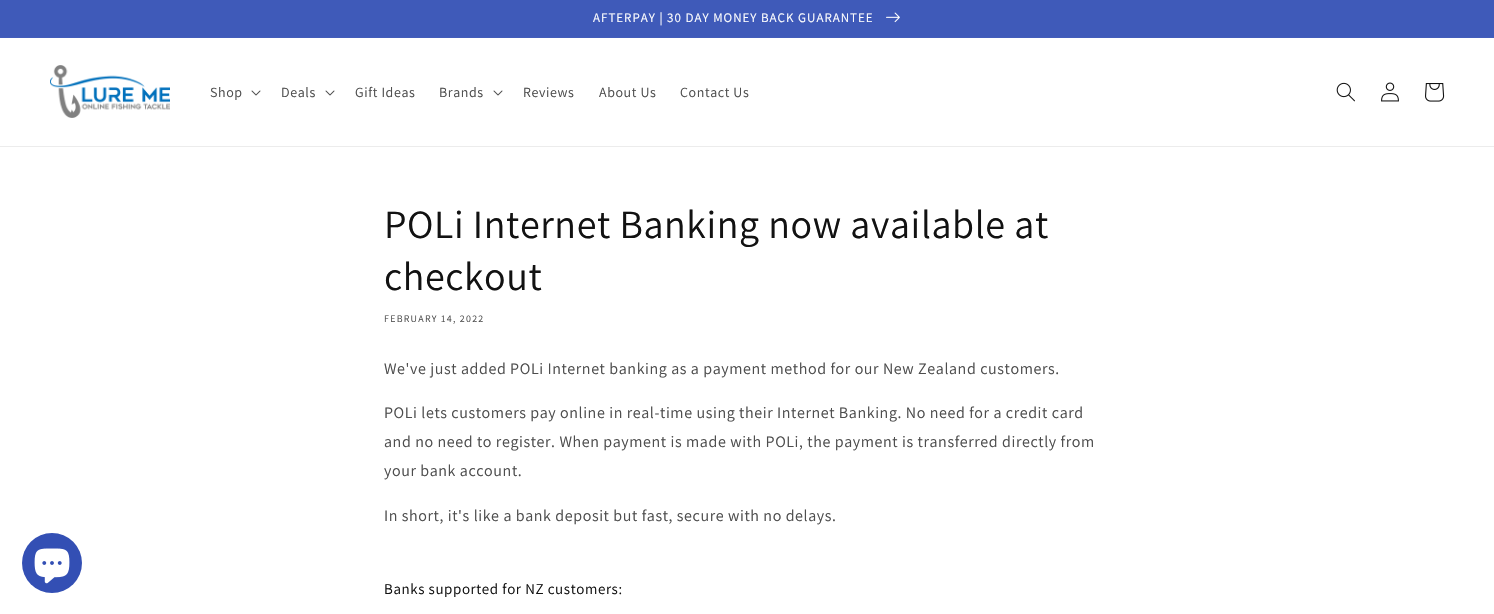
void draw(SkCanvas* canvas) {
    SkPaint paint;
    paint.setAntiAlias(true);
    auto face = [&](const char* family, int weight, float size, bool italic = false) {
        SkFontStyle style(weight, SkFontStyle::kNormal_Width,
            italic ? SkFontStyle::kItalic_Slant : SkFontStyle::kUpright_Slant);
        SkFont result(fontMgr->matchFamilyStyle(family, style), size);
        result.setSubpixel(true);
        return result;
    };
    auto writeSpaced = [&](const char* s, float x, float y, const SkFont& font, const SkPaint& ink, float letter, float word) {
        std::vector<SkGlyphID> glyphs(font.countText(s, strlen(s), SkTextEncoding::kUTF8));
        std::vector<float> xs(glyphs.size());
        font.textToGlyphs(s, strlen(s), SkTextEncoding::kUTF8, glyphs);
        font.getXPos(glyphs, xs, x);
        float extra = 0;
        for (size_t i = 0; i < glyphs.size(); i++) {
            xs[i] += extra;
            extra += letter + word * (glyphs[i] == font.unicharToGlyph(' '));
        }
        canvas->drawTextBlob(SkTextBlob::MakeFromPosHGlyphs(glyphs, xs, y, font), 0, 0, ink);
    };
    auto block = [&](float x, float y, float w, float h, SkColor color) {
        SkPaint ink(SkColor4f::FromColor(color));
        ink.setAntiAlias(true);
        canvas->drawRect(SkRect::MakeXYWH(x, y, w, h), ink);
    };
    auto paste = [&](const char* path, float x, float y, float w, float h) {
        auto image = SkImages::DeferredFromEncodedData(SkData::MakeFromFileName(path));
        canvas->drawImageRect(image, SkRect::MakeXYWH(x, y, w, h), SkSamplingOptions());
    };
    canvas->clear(SK_ColorWHITE);
    block(0, 37, 1494, 1, SkColorSetRGB(67, 93, 186));
    block(0, 0, 1494, 37, SkColorSetRGB(63, 90, 185));
    auto kFont1 = face("Assistant", 400, 13);
    paint.setColor(SK_ColorWHITE);
    writeSpaced("AFTERPAY | 30 DAY MONEY BACK GUARANTEE", 593, 22, kFont1, paint, 1, 0);
    paste("pic1.png", 886, 12, 14, 11);
    block(0, 146, 1494, 1, SkColorSetRGB(236, 236, 236));
    paste("pic2.png", 50, 65, 120, 53);
    auto kFont2 = face("Assistant", 400, 14);
    paint.setColor(SkColorSetRGB(77, 77, 77));
    writeSpaced("Shop", 210, 97, kFont2, paint, 0.6f, 0);
    paste("pic3.png", 251, 90, 10, 6);
    writeSpaced("Deals", 281, 97, kFont2, paint, 0.6f, 0);
    paste("pic3.png", 325, 90, 10, 6);
    writeSpaced("Gift Ideas", 355, 97, kFont2, paint, 0.6f, 0);
    writeSpaced("Brands", 439, 97, kFont2, paint, 0.6f, 0);
    paste("pic3.png", 493, 90, 10, 6);
    writeSpaced("Reviews", 523, 97, kFont2, paint, 0.6f, 0);
    writeSpaced("About Us", 599, 97, kFont2, paint, 0.6f, 0);
    writeSpaced("Contact Us", 680, 97, kFont2, paint, 0.6f, 0);
    paste("pic4.png", 1336, 82, 19, 20);
    paste("pic5.png", 1381, 82, 18, 20);
    paste("pic6.png", 1425, 83, 20, 19);
    paint.setColor(SkColorSetRGB(51, 79, 180));
    canvas->drawCircle(52, 563, 30, paint);
    paste("pic7.png", 34, 548, 36, 36);
    auto kFont3 = face("Assistant", 400, 40);
    paint.setColor(SkColorSetRGB(18, 18, 18));
    writeSpaced("POLi Internet Banking now available at", 384, 238, kFont3, paint, 0.6f, 0);
    writeSpaced("checkout", 384, 290, kFont3, paint, 0.6f, 0);
    auto kFont4 = face("Assistant", 400, 10);
    paint.setColor(SkColorSetRGB(77, 77, 77));
    writeSpaced("FEBRUARY 14, 2022", 384, 322, kFont4, paint, 1.25f, 0);
    auto kFont5 = face("Assistant", 400, 16);
    writeSpaced("We've just added POLi Internet banking as a payment method for our New Zealand customers.", 384, 374, kFont5, paint, 0.6f, 0);
    writeSpaced("POLi lets customers pay online in real-time using their Internet Banking. No need for a credit card", 384, 418, kFont5, paint, 0.6f, 0);
    writeSpaced("and no need to register. When payment is made with POLi, the payment is transferred directly from", 384, 447, kFont5, paint, 0.6f, 0);
    writeSpaced("your bank account.", 384, 476, kFont5, paint, 0.6f, 0);
    writeSpaced("In short, it's like a bank deposit but fast, secure with no delays.", 384, 521, kFont5, paint, 0.6f, 0);
    auto kFont6 = face("Assistant", 400, 15);
    paint.setColor(SkColorSetRGB(18, 18, 18));
    writeSpaced("Banks supported for NZ customers:", 384, 594, kFont6, paint, 0.6f, 0);
}
